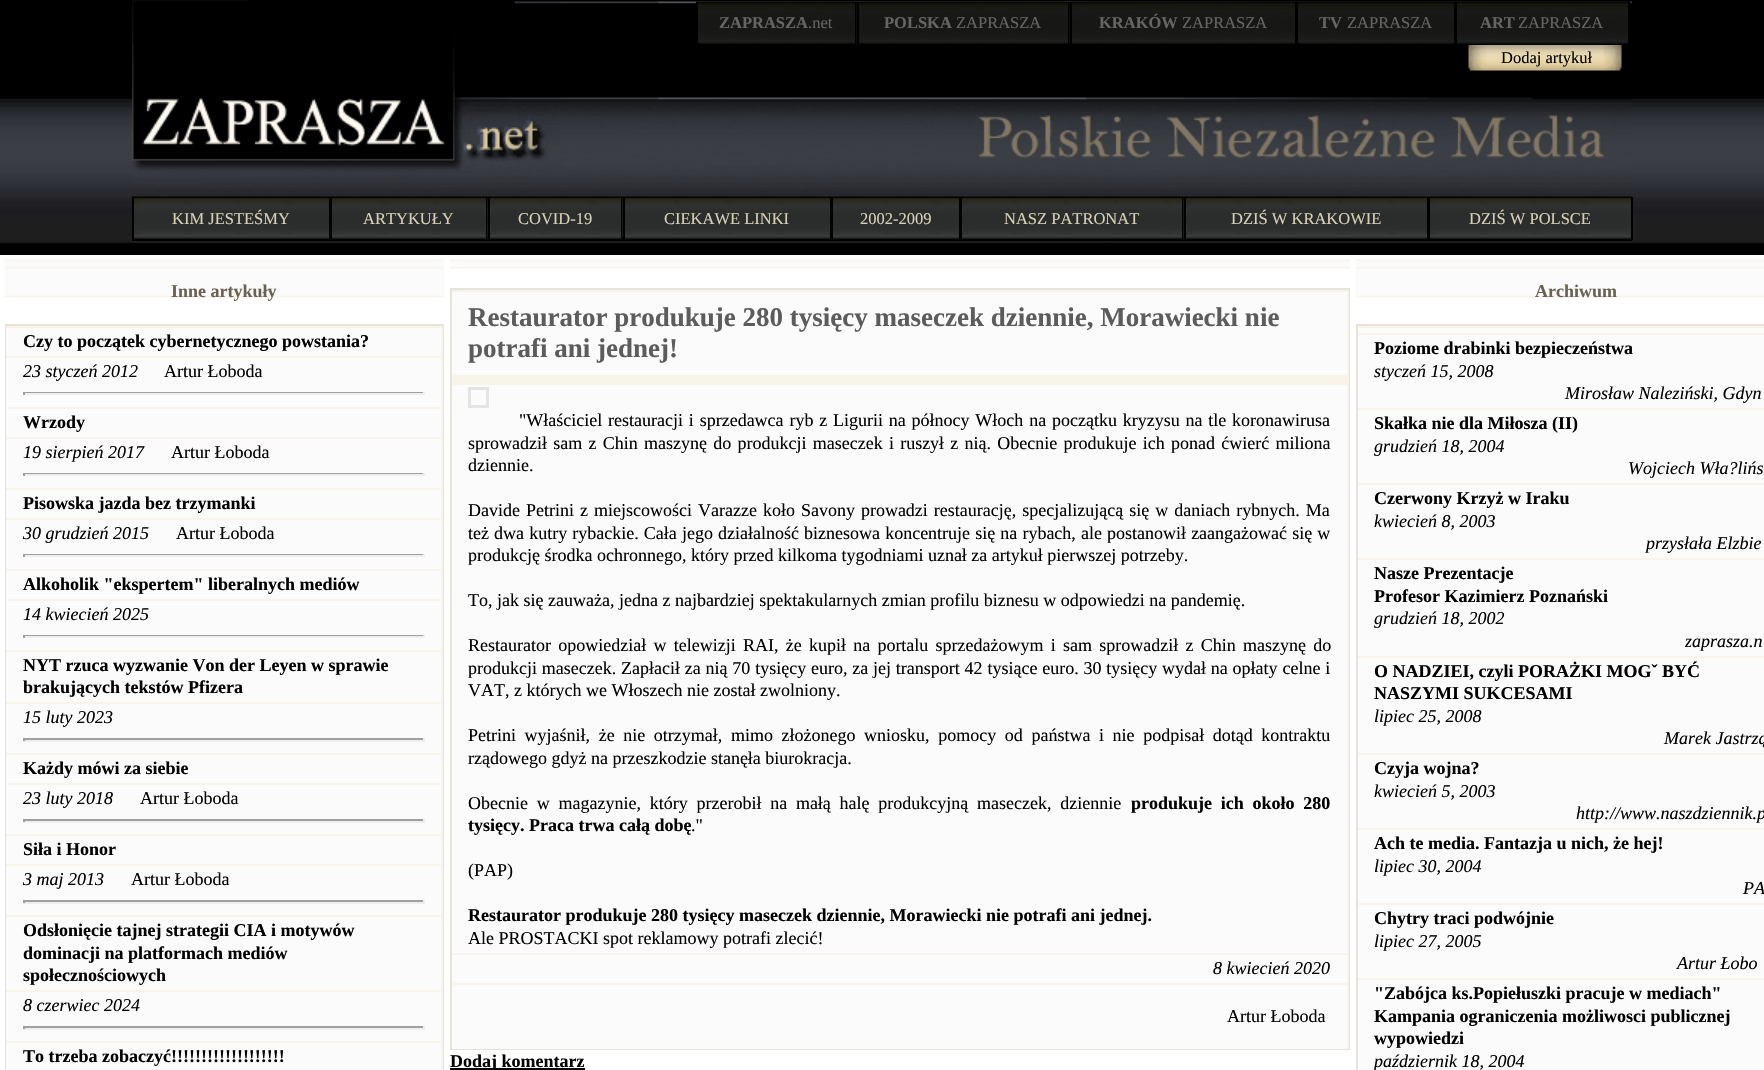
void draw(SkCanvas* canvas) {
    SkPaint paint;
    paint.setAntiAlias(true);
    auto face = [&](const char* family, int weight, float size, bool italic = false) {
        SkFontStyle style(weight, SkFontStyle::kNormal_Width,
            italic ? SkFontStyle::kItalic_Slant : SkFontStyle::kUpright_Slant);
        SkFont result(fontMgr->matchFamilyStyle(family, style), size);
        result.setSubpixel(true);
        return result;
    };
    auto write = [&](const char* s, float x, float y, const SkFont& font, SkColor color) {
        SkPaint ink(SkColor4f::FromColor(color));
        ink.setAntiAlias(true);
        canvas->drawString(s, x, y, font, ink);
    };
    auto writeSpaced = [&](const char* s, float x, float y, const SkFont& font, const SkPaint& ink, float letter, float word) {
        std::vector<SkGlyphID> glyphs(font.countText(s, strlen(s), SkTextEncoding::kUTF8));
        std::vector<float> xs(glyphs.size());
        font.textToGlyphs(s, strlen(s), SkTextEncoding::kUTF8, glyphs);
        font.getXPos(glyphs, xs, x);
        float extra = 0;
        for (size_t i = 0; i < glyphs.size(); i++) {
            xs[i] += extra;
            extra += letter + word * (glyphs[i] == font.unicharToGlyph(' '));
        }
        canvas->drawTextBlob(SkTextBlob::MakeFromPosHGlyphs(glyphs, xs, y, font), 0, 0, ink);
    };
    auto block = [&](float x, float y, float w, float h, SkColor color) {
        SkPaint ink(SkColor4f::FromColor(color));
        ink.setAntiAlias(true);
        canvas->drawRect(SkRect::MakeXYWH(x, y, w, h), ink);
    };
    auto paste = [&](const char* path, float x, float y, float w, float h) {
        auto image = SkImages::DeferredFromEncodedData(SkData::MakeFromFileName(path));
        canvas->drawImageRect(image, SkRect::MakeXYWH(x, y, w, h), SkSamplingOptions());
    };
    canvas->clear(SK_ColorWHITE);
    paste("pic1.png", 0, 0, 1764, 255);
    paste("pic2.png", 132, 0, 1500, 243);
    paste("pic3.png", 132, 5, 330, 164);
    paste("pic4.png", 696, 1, 161, 43);
    block(855, 2, 2, 43, SK_ColorBLACK);
    block(696, 2, 2, 43, SK_ColorBLACK);
    auto kFont1 = face("Liberation Serif", 700, 16.5f);
    write("ZAPRASZA", 719, 28, kFont1, SkColorSetRGB(103, 101, 97));
    auto kFont2 = face("Liberation Serif", 400, 16.5f);
    write(".net", 808, 28, kFont2, SkColorSetRGB(103, 101, 97));
    paste("pic5.png", 856, 1, 214, 44);
    block(1068, 2, 2, 43, SK_ColorBLACK);
    block(857, 44, 213, 1, SK_ColorBLACK);
    block(857, 2, 2, 43, SK_ColorBLACK);
    write("POLSKA", 884, 28, kFont1, SkColorSetRGB(103, 101, 97));
    write("ZAPRASZA", 956, 28, kFont2, SkColorSetRGB(103, 101, 97));
    paste("pic6.png", 1069, 1, 227, 44);
    block(1295, 2, 1, 43, SK_ColorBLACK);
    block(1070, 44, 226, 1, SK_ColorBLACK);
    block(1070, 2, 2, 43, SK_ColorBLACK);
    write("KRAKÓW", 1099, 28, kFont1, SkColorSetRGB(103, 101, 97));
    write("ZAPRASZA", 1182, 28, kFont2, SkColorSetRGB(103, 101, 97));
    paste("pic7.png", 1296, 1, 159, 43);
    block(1454, 2, 1, 43, SK_ColorBLACK);
    block(1296, 2, 2, 43, SK_ColorBLACK);
    write("TV", 1319, 28, kFont1, SkColorSetRGB(103, 101, 97));
    write("ZAPRASZA", 1347, 28, kFont2, SkColorSetRGB(103, 101, 97));
    paste("pic8.png", 1455, 1, 174, 43);
    block(1628, 2, 2, 43, SK_ColorBLACK);
    block(1455, 2, 2, 43, SK_ColorBLACK);
    write("ART", 1480, 28, kFont1, SkColorSetRGB(103, 101, 97));
    write("ZAPRASZA", 1518, 28, kFont2, SkColorSetRGB(103, 101, 97));
    paste("pic9.png", 1468, 45, 154, 26);
    write("Dodaj artykuł", 1501, 63, kFont2, SK_ColorBLACK);
    paste("pic10.png", 462, 118, 99, 53);
    paste("pic11.png", 978, 115, 626, 43);
    paste("pic12.png", 132, 196, 198, 43);
    block(329, 197, 1, 43, SK_ColorBLACK);
    block(132, 239, 198, 2, SK_ColorBLACK);
    block(132, 197, 2, 43, SK_ColorBLACK);
    write("KIM JESTEŚMY", 172, 224, kFont2, SkColorSetRGB(216, 208, 182));
    paste("pic13.png", 330, 196, 158, 43);
    block(486, 197, 2, 43, SK_ColorBLACK);
    block(330, 239, 158, 2, SK_ColorBLACK);
    block(330, 197, 2, 43, SK_ColorBLACK);
    write("ARTYKUŁY", 363, 224, kFont2, SkColorSetRGB(216, 208, 182));
    paste("pic14.png", 487, 196, 136, 44);
    block(621, 197, 2, 43, SK_ColorBLACK);
    block(488, 239, 135, 2, SK_ColorBLACK);
    block(488, 197, 2, 43, SK_ColorBLACK);
    write("COVID-19", 518, 224, kFont2, SkColorSetRGB(216, 208, 182));
    paste("pic15.png", 622, 196, 209, 44);
    block(830, 197, 1, 43, SK_ColorBLACK);
    block(623, 239, 208, 2, SK_ColorBLACK);
    block(623, 197, 2, 43, SK_ColorBLACK);
    write("CIEKAWE LINKI", 664, 224, kFont2, SkColorSetRGB(216, 208, 182));
    paste("pic16.png", 831, 196, 129, 43);
    block(959, 197, 1, 43, SK_ColorBLACK);
    block(831, 239, 129, 2, SK_ColorBLACK);
    block(831, 197, 2, 43, SK_ColorBLACK);
    write("2002-2009", 860, 224, kFont2, SkColorSetRGB(216, 208, 182));
    paste("pic17.png", 960, 196, 224, 43);
    block(1182, 197, 2, 43, SK_ColorBLACK);
    block(960, 239, 224, 2, SK_ColorBLACK);
    block(960, 197, 2, 43, SK_ColorBLACK);
    write("NASZ PATRONAT", 1004, 224, kFont2, SkColorSetRGB(216, 208, 182));
    paste("pic18.png", 1183, 196, 245, 44);
    block(1427, 197, 1, 43, SK_ColorBLACK);
    block(1184, 239, 244, 2, SK_ColorBLACK);
    block(1184, 197, 2, 43, SK_ColorBLACK);
    write("DZIŚ W KRAKOWIE", 1231, 224, kFont2, SkColorSetRGB(216, 208, 182));
    paste("pic19.png", 1428, 196, 204, 43);
    block(1631, 197, 2, 43, SK_ColorBLACK);
    block(1428, 239, 204, 2, SK_ColorBLACK);
    block(1428, 197, 2, 43, SK_ColorBLACK);
    write("DZIŚ W POLSCE", 1469, 224, kFont2, SkColorSetRGB(216, 208, 182));
    paste("pic20.png", 4, 259, 2, 39);
    paste("pic21.png", 6, 259, 437, 39);
    auto kFont3 = face("Liberation Serif", 700, 18);
    write("Inne artykuły", 171, 297, kFont3, SkColorSetRGB(107, 97, 83));
    paste("pic22.png", 442, 259, 2, 39);
    paint.setStyle(SkPaint::kStroke_Style);
    paint.setStrokeWidth(2);
    paint.setColor(SkColorSetRGB(231, 227, 218));
    canvas->drawRect(SkRect::MakeXYWH(6, 325, 437, 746), paint);
    block(6, 328, 435, 28, SkColorSetRGB(251, 251, 251));
    block(6, 326, 437, 2, SkColorSetRGB(248, 244, 233));
    block(441, 326, 2, 30, SkColorSetRGB(248, 244, 233));
    write("Czy to początek cybernetycznego powstania?", 23, 347, kFont3, SK_ColorBLACK);
    block(6, 358, 435, 49, SkColorSetRGB(251, 251, 251));
    block(6, 356, 437, 2, SkColorSetRGB(248, 244, 233));
    block(441, 356, 2, 51, SkColorSetRGB(248, 244, 233));
    auto kFont4 = face("Liberation Serif", 400, 18, true);
    write("23 styczeń 2012", 23, 377, kFont4, SK_ColorBLACK);
    auto kFont5 = face("Liberation Serif", 400, 18);
    write("Artur Łoboda", 164, 377, kFont5, SK_ColorBLACK);
    block(23, 392, 402, 1, SkColorSetRGB(159, 159, 159));
    block(423, 392, 2, 3, SkColorSetRGB(238, 238, 238));
    block(23, 393, 402, 2, SkColorSetRGB(238, 238, 238));
    block(23, 392, 2, 3, SkColorSetRGB(159, 159, 159));
    block(6, 409, 435, 28, SkColorSetRGB(251, 251, 251));
    block(6, 407, 437, 2, SkColorSetRGB(248, 244, 233));
    block(441, 407, 2, 30, SkColorSetRGB(248, 244, 233));
    write("Wrzody", 23, 428, kFont3, SK_ColorBLACK);
    block(6, 439, 435, 49, SkColorSetRGB(251, 251, 251));
    block(6, 437, 437, 2, SkColorSetRGB(248, 244, 233));
    block(441, 437, 2, 51, SkColorSetRGB(248, 244, 233));
    write("19 sierpień 2017", 23, 458, kFont4, SK_ColorBLACK);
    write("Artur Łoboda", 171, 458, kFont5, SK_ColorBLACK);
    block(23, 473, 402, 1, SkColorSetRGB(159, 159, 159));
    block(423, 473, 2, 3, SkColorSetRGB(238, 238, 238));
    block(23, 474, 402, 2, SkColorSetRGB(238, 238, 238));
    block(23, 473, 2, 3, SkColorSetRGB(159, 159, 159));
    block(6, 490, 435, 28, SkColorSetRGB(251, 251, 251));
    block(6, 488, 437, 2, SkColorSetRGB(248, 244, 233));
    block(441, 488, 2, 30, SkColorSetRGB(248, 244, 233));
    write("Pisowska jazda bez trzymanki", 23, 509, kFont3, SK_ColorBLACK);
    block(6, 520, 435, 49, SkColorSetRGB(251, 251, 251));
    block(6, 518, 437, 2, SkColorSetRGB(248, 244, 233));
    block(441, 518, 2, 51, SkColorSetRGB(248, 244, 233));
    write("30 grudzień 2015", 23, 539, kFont4, SK_ColorBLACK);
    write("Artur Łoboda", 176, 539, kFont5, SK_ColorBLACK);
    block(23, 554, 402, 1, SkColorSetRGB(159, 159, 159));
    block(423, 554, 2, 3, SkColorSetRGB(238, 238, 238));
    block(23, 555, 402, 2, SkColorSetRGB(238, 238, 238));
    block(23, 554, 2, 3, SkColorSetRGB(159, 159, 159));
    block(6, 571, 435, 28, SkColorSetRGB(251, 251, 251));
    block(6, 569, 437, 2, SkColorSetRGB(248, 244, 233));
    block(441, 569, 2, 30, SkColorSetRGB(248, 244, 233));
    write("Alkoholik \"ekspertem\" liberalnych mediów", 23, 590, kFont3, SK_ColorBLACK);
    block(6, 601, 435, 49, SkColorSetRGB(251, 251, 251));
    block(6, 599, 437, 2, SkColorSetRGB(248, 244, 233));
    block(441, 599, 2, 51, SkColorSetRGB(248, 244, 233));
    write("14 kwiecień 2025", 23, 620, kFont4, SK_ColorBLACK);
    block(23, 635, 402, 1, SkColorSetRGB(159, 159, 159));
    block(423, 635, 2, 3, SkColorSetRGB(238, 238, 238));
    block(23, 636, 402, 2, SkColorSetRGB(238, 238, 238));
    block(23, 635, 2, 3, SkColorSetRGB(159, 159, 159));
    block(6, 652, 435, 50, SkColorSetRGB(251, 251, 251));
    block(6, 650, 437, 2, SkColorSetRGB(248, 244, 233));
    block(441, 650, 2, 52, SkColorSetRGB(248, 244, 233));
    write("NYT rzuca wyzwanie Von der Leyen w sprawie", 23, 671, kFont3, SK_ColorBLACK);
    write("brakujących tekstów Pfizera", 23, 693, kFont3, SK_ColorBLACK);
    block(6, 704, 435, 49, SkColorSetRGB(251, 251, 251));
    block(6, 702, 437, 2, SkColorSetRGB(248, 244, 233));
    block(441, 702, 2, 51, SkColorSetRGB(248, 244, 233));
    write("15 luty 2023", 23, 723, kFont4, SK_ColorBLACK);
    block(23, 738, 402, 2, SkColorSetRGB(159, 159, 159));
    block(423, 738, 2, 3, SkColorSetRGB(238, 238, 238));
    block(23, 740, 402, 2, SkColorSetRGB(238, 238, 238));
    block(23, 738, 2, 3, SkColorSetRGB(159, 159, 159));
    block(6, 755, 435, 28, SkColorSetRGB(251, 251, 251));
    block(6, 753, 437, 2, SkColorSetRGB(248, 244, 233));
    block(441, 753, 2, 30, SkColorSetRGB(248, 244, 233));
    write("Każdy mówi za siebie", 23, 774, kFont3, SK_ColorBLACK);
    block(6, 785, 435, 49, SkColorSetRGB(251, 251, 251));
    block(6, 783, 437, 2, SkColorSetRGB(248, 244, 233));
    block(441, 783, 2, 51, SkColorSetRGB(248, 244, 233));
    write("23 luty 2018", 23, 804, kFont4, SK_ColorBLACK);
    write("Artur Łoboda", 140, 804, kFont5, SK_ColorBLACK);
    block(23, 819, 402, 2, SkColorSetRGB(159, 159, 159));
    block(423, 819, 2, 3, SkColorSetRGB(238, 238, 238));
    block(23, 821, 402, 2, SkColorSetRGB(238, 238, 238));
    block(23, 819, 2, 3, SkColorSetRGB(159, 159, 159));
    block(6, 836, 435, 28, SkColorSetRGB(251, 251, 251));
    block(6, 834, 437, 2, SkColorSetRGB(248, 244, 233));
    block(441, 834, 2, 30, SkColorSetRGB(248, 244, 233));
    write("Siła i Honor", 23, 855, kFont3, SK_ColorBLACK);
    block(6, 866, 435, 49, SkColorSetRGB(251, 251, 251));
    block(6, 864, 437, 2, SkColorSetRGB(248, 244, 233));
    block(441, 864, 2, 51, SkColorSetRGB(248, 244, 233));
    write("3 maj 2013", 23, 885, kFont4, SK_ColorBLACK);
    write("Artur Łoboda", 131, 885, kFont5, SK_ColorBLACK);
    block(23, 900, 402, 2, SkColorSetRGB(159, 159, 159));
    block(423, 900, 2, 3, SkColorSetRGB(238, 238, 238));
    block(23, 902, 402, 2, SkColorSetRGB(238, 238, 238));
    block(23, 900, 2, 3, SkColorSetRGB(159, 159, 159));
    block(6, 917, 435, 73, SkColorSetRGB(251, 251, 251));
    block(6, 915, 437, 2, SkColorSetRGB(248, 244, 233));
    block(441, 915, 2, 75, SkColorSetRGB(248, 244, 233));
    write("Odsłonięcie tajnej strategii CIA i motywów", 23, 936, kFont3, SK_ColorBLACK);
    write("dominacji na platformach mediów", 23, 959, kFont3, SK_ColorBLACK);
    write("społecznościowych", 23, 981, kFont3, SK_ColorBLACK);
    block(6, 992, 435, 49, SkColorSetRGB(251, 251, 251));
    block(6, 990, 437, 2, SkColorSetRGB(248, 244, 233));
    block(441, 990, 2, 51, SkColorSetRGB(248, 244, 233));
    write("8 czerwiec 2024", 23, 1011, kFont4, SK_ColorBLACK);
    block(23, 1026, 402, 2, SkColorSetRGB(159, 159, 159));
    block(423, 1026, 2, 3, SkColorSetRGB(238, 238, 238));
    block(23, 1028, 402, 2, SkColorSetRGB(238, 238, 238));
    block(23, 1026, 2, 3, SkColorSetRGB(159, 159, 159));
    block(6, 1043, 435, 27, SkColorSetRGB(251, 251, 251));
    block(6, 1041, 437, 2, SkColorSetRGB(248, 244, 233));
    block(441, 1041, 2, 29, SkColorSetRGB(248, 244, 233));
    write("To trzeba zobaczyć!!!!!!!!!!!!!!!!!!!", 23, 1062, kFont3, SK_ColorBLACK);
    paste("pic23.png", 450, 259, 2, 10);
    paste("pic24.png", 451, 259, 898, 10);
    paste("pic25.png", 1348, 259, 2, 10);
    canvas->drawRect(SkRect::MakeXYWH(451, 289, 898, 760), paint);
    block(452, 292, 895, 83, SkColorSetRGB(251, 251, 251));
    block(452, 290, 897, 2, SkColorSetRGB(248, 244, 233));
    block(1347, 290, 2, 85, SkColorSetRGB(248, 244, 233));
    auto kFont6 = face("Liberation Serif", 700, 27);
    write("Restaurator produkuje 280 tysięcy maseczek dziennie, Morawiecki nie", 468, 326, kFont6, SkColorSetRGB(92, 92, 92));
    write("potrafi ani jednej!", 468, 357, kFont6, SkColorSetRGB(92, 92, 92));
    block(452, 375, 897, 10, SkColorSetRGB(248, 244, 233));
    block(452, 385, 895, 568, SkColorSetRGB(251, 251, 251));
    block(1347, 383, 2, 570, SkColorSetRGB(248, 244, 233));
    paint.setStrokeWidth(3);
    paint.setColor(SkColorSetRGB(228, 228, 228));
    canvas->drawRect(SkRect::MakeXYWH(469.5f, 388.5f, 18, 18), paint);
    paint.setStyle(SkPaint::kFill_Style);
    paint.setColor(SK_ColorBLACK);
    writeSpaced("\"Właściciel restauracji i sprzedawca ryb z Ligurii na północy Włoch na początku kryzysu na tle koronawirusa", 519, 426, kFont5, paint, 0, 1.3f);
    writeSpaced("sprowadził sam z Chin maszynę do produkcji maseczek i ruszył z nią. Obecnie produkuje ich ponad ćwierć miliona", 468, 449, kFont5, paint, 0, 1.75f);
    write("dziennie.", 468, 471, kFont5, SK_ColorBLACK);
    writeSpaced("Davide Petrini z miejscowości Varazze koło Savony prowadzi restaurację, specjalizującą się w daniach rybnych. Ma", 468, 516, kFont5, paint, 0, 1.5f);
    writeSpaced("też dwa kutry rybackie. Cała jego działalność biznesowa koncentruje się na rybach, ale postanowił zaangażować się w", 468, 539, kFont5, paint, 0, 0.6f);
    write("produkcję środka ochronnego, który przed kilkoma tygodniami uznał za artykuł pierwszej potrzeby.", 468, 561, kFont5, SK_ColorBLACK);
    write("To, jak się zauważa, jedna z najbardziej spektakularnych zmian profilu biznesu w odpowiedzi na pandemię.", 468, 606, kFont5, SK_ColorBLACK);
    writeSpaced("Restaurator opowiedział w telewizji RAI, że kupił na portalu sprzedażowym i sam sprowadził z Chin maszynę do", 468, 651, kFont5, paint, 0, 2.75f);
    writeSpaced("produkcji maseczek. Zapłacił za nią 70 tysięcy euro, za jej transport 42 tysiące euro. 30 tysięcy wydał na opłaty celne i", 468, 674, kFont5, paint, 0, 0.3f);
    write("VAT, z których we Włoszech nie został zwolniony.", 468, 696, kFont5, SK_ColorBLACK);
    writeSpaced("Petrini wyjaśnił, że nie otrzymał, mimo złożonego wniosku, pomocy od państwa i nie podpisał dotąd kontraktu", 468, 741, kFont5, paint, 0, 4.1f);
    write("rządowego gdyż na przeszkodzie stanęła biurokracja.", 468, 764, kFont5, SK_ColorBLACK);
    writeSpaced("Obecnie w magazynie, który przerobił na małą halę produkcyjną maseczek, dziennie", 468, 809, kFont5, paint, 0, 4.25f);
    writeSpaced("produkuje ich około 280", 1131, 809, kFont3, paint, 0, 4.25f);
    write("tysięcy. Praca trwa całą dobę", 468, 831, kFont3, SK_ColorBLACK);
    write(".\"", 691, 831, kFont5, SK_ColorBLACK);
    write("(PAP)", 468, 876, kFont5, SK_ColorBLACK);
    write("Restaurator produkuje 280 tysięcy maseczek dziennie, Morawiecki nie potrafi ani jednej.", 468, 921, kFont3, SK_ColorBLACK);
    write("Ale PROSTACKI spot reklamowy potrafi zlecić!", 468, 944, kFont5, SK_ColorBLACK);
    block(452, 955, 895, 28, SkColorSetRGB(251, 251, 251));
    block(452, 953, 897, 2, SkColorSetRGB(248, 244, 233));
    block(1347, 953, 2, 30, SkColorSetRGB(248, 244, 233));
    write("8 kwiecień 2020", 1213, 974, kFont4, SK_ColorBLACK);
    block(452, 985, 895, 64, SkColorSetRGB(251, 251, 251));
    block(452, 983, 897, 2, SkColorSetRGB(248, 244, 233));
    block(1347, 983, 2, 66, SkColorSetRGB(248, 244, 233));
    write("Artur Łoboda", 1227, 1022, kFont5, SK_ColorBLACK);
    block(450, 1068, 135, 2, SK_ColorBLACK);
    write("Dodaj komentarz", 450, 1067, kFont3, SK_ColorBLACK);
    paste("pic26.png", 1356, 259, 408, 39);
    write("Archiwum", 1535, 297, kFont3, SkColorSetRGB(107, 97, 83));
    paint.setStyle(SkPaint::kStroke_Style);
    paint.setStrokeWidth(2);
    paint.setColor(SkColorSetRGB(231, 227, 218));
    canvas->drawRect(SkRect::MakeXYWH(1357, 325, 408, 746), paint);
    block(1358, 328, 406, 5, SkColorSetRGB(251, 251, 251));
    block(1358, 326, 406, 2, SkColorSetRGB(248, 244, 233));
    block(1358, 335, 406, 73, SkColorSetRGB(251, 251, 251));
    block(1358, 333, 406, 2, SkColorSetRGB(248, 244, 233));
    write("Poziome drabinki bezpieczeństwa", 1374, 354, kFont3, SK_ColorBLACK);
    write("styczeń 15, 2008", 1374, 377, kFont4, SK_ColorBLACK);
    write("Mirosław Naleziński, Gdyn", 1565, 399, kFont4, SK_ColorBLACK);
    block(1358, 410, 406, 73, SkColorSetRGB(251, 251, 251));
    block(1358, 408, 406, 2, SkColorSetRGB(248, 244, 233));
    write("Skałka nie dla Miłosza (II)", 1374, 429, kFont3, SK_ColorBLACK);
    write("grudzień 18, 2004", 1374, 452, kFont4, SK_ColorBLACK);
    write("Wojciech Wła?lińs", 1628, 474, kFont4, SK_ColorBLACK);
    block(1358, 485, 406, 73, SkColorSetRGB(251, 251, 251));
    block(1358, 483, 406, 2, SkColorSetRGB(248, 244, 233));
    write("Czerwony Krzyż w Iraku", 1374, 504, kFont3, SK_ColorBLACK);
    write("kwiecień 8, 2003", 1374, 527, kFont4, SK_ColorBLACK);
    write("przysłała Elzbie", 1646, 549, kFont4, SK_ColorBLACK);
    block(1358, 560, 406, 96, SkColorSetRGB(251, 251, 251));
    block(1358, 558, 406, 2, SkColorSetRGB(248, 244, 233));
    write("Nasze Prezentacje", 1374, 579, kFont3, SK_ColorBLACK);
    write("Profesor Kazimierz Poznański", 1374, 602, kFont3, SK_ColorBLACK);
    write("grudzień 18, 2002", 1374, 624, kFont4, SK_ColorBLACK);
    write("zaprasza.n", 1685, 647, kFont4, SK_ColorBLACK);
    block(1358, 658, 406, 95, SkColorSetRGB(251, 251, 251));
    block(1358, 656, 406, 2, SkColorSetRGB(248, 244, 233));
    write("O NADZIEI, czyli PORAŻKI MOGˇ BYĆ", 1374, 677, kFont3, SK_ColorBLACK);
    write("NASZYMI SUKCESAMI", 1374, 699, kFont3, SK_ColorBLACK);
    write("lipiec 25, 2008", 1374, 722, kFont4, SK_ColorBLACK);
    write("Marek Jastrzą", 1664, 744, kFont4, SK_ColorBLACK);
    block(1358, 755, 406, 73, SkColorSetRGB(251, 251, 251));
    block(1358, 753, 406, 2, SkColorSetRGB(248, 244, 233));
    write("Czyja wojna?", 1374, 774, kFont3, SK_ColorBLACK);
    write("kwiecień 5, 2003", 1374, 797, kFont4, SK_ColorBLACK);
    write("http://www.naszdziennik.p", 1576, 819, kFont4, SK_ColorBLACK);
    block(1358, 830, 406, 73, SkColorSetRGB(251, 251, 251));
    block(1358, 828, 406, 2, SkColorSetRGB(248, 244, 233));
    write("Ach te media. Fantazja u nich, że hej!", 1374, 849, kFont3, SK_ColorBLACK);
    write("lipiec 30, 2004", 1374, 872, kFont4, SK_ColorBLACK);
    write("PA", 1743, 894, kFont4, SK_ColorBLACK);
    block(1358, 905, 406, 73, SkColorSetRGB(251, 251, 251));
    block(1358, 903, 406, 2, SkColorSetRGB(248, 244, 233));
    write("Chytry traci podwójnie", 1374, 924, kFont3, SK_ColorBLACK);
    write("lipiec 27, 2005", 1374, 947, kFont4, SK_ColorBLACK);
    write("Artur Łobo", 1677, 969, kFont4, SK_ColorBLACK);
    block(1358, 980, 406, 90, SkColorSetRGB(251, 251, 251));
    block(1358, 978, 406, 2, SkColorSetRGB(248, 244, 233));
    write("\"Zabójca ks.Popiełuszki pracuje w mediach\"", 1374, 999, kFont3, SK_ColorBLACK);
    write("Kampania ograniczenia możliwosci publicznej", 1374, 1022, kFont3, SK_ColorBLACK);
    write("wypowiedzi", 1374, 1044, kFont3, SK_ColorBLACK);
    write("październik 18, 2004", 1374, 1067, kFont4, SK_ColorBLACK);
}
